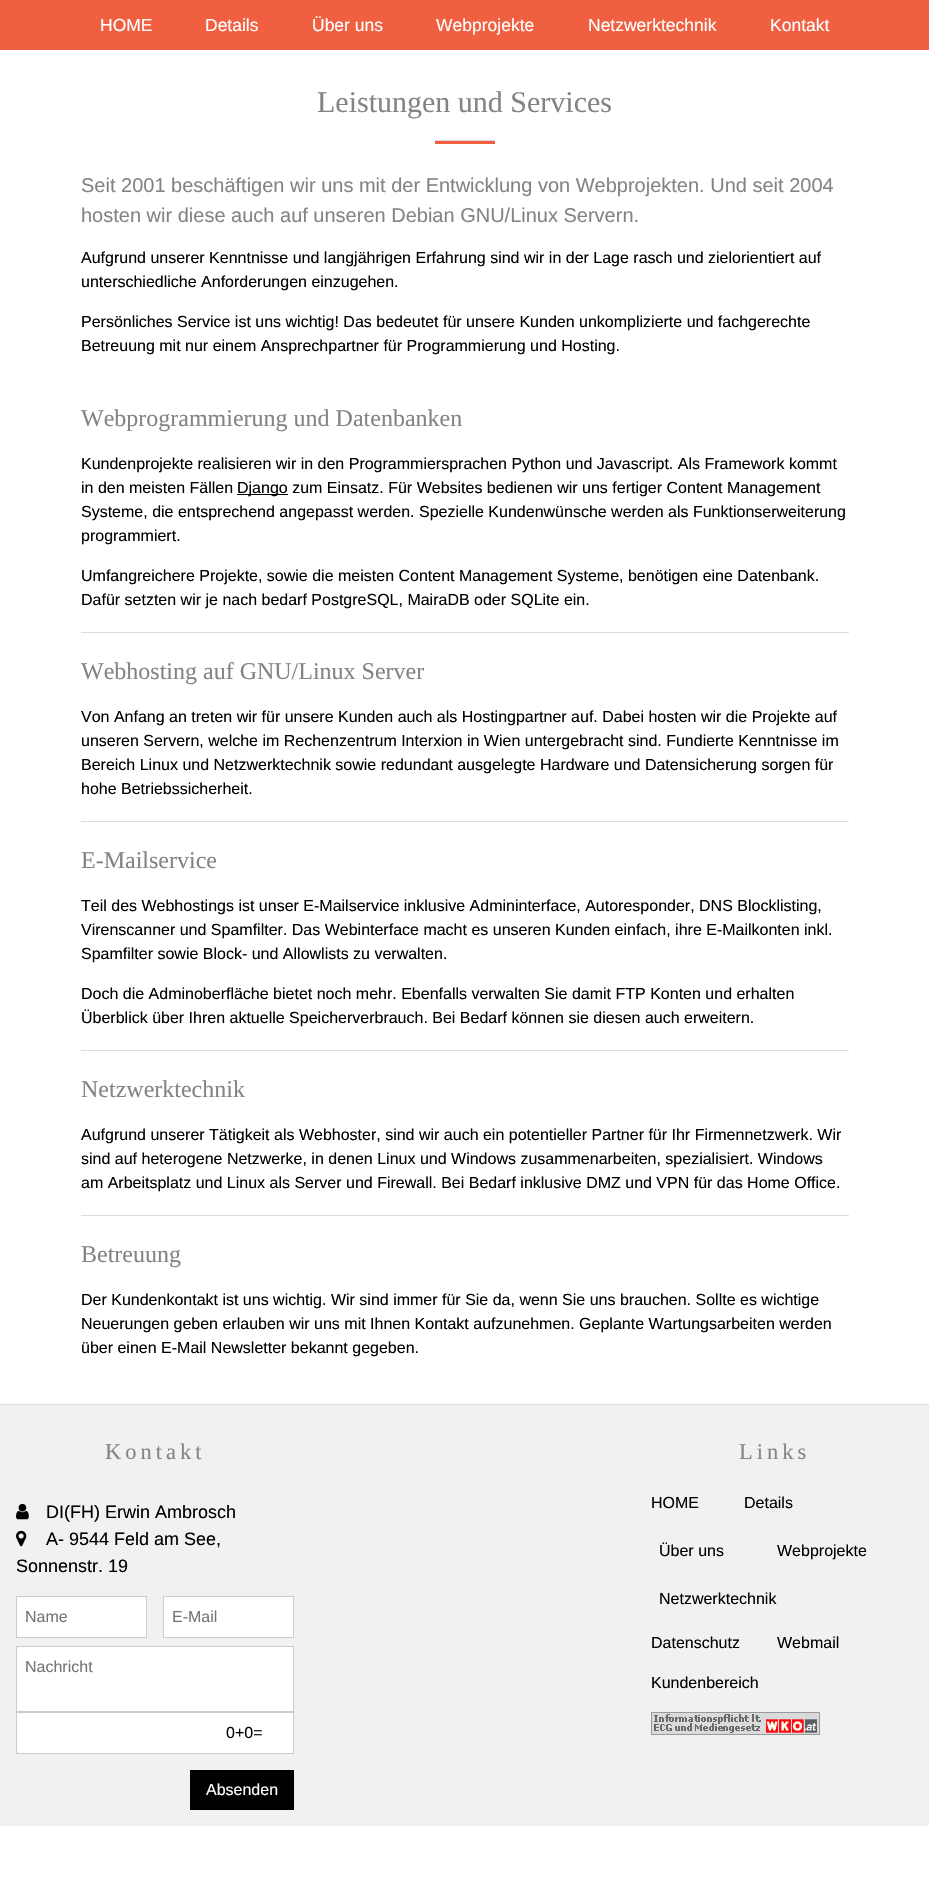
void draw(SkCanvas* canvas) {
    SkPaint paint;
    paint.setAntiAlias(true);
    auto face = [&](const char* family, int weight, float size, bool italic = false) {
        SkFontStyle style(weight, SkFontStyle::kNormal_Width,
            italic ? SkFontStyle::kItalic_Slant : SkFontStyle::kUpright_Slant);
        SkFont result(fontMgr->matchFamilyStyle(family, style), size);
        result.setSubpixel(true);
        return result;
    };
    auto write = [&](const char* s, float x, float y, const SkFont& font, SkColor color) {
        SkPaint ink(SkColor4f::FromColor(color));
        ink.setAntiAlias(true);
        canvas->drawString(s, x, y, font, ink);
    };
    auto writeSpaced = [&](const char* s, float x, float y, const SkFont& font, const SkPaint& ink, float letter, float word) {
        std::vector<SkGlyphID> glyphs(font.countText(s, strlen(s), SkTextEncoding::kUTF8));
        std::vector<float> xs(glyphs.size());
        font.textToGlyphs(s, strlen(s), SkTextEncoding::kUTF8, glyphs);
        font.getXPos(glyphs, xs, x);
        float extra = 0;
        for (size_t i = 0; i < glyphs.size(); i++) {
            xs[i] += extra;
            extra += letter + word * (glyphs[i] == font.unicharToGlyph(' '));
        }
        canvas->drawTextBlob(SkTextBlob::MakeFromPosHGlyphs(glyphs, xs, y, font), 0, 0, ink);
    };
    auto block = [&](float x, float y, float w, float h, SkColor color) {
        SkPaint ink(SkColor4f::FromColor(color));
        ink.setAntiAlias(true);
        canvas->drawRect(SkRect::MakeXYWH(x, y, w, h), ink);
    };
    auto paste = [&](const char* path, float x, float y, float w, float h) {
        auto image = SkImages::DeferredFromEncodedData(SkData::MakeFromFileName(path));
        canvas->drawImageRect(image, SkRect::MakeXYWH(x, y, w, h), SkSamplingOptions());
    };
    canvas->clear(SK_ColorWHITE);
    block(0, 0, 929, 50, SkColorSetRGB(240, 95, 64));
    auto kFont1 = face("Liberation Sans", 400, 17.5f);
    write("HOME", 100, 31, kFont1, SK_ColorWHITE);
    write("Details", 205, 31, kFont1, SK_ColorWHITE);
    write("Über uns", 312, 31, kFont1, SK_ColorWHITE);
    write("Webprojekte", 436, 31, kFont1, SK_ColorWHITE);
    write("Netzwerktechnik", 588, 31, kFont1, SK_ColorWHITE);
    write("Kontakt", 770, 31, kFont1, SK_ColorWHITE);
    auto kFont2 = face("Liberation Serif", 400, 30);
    write("Leistungen und Services", 317, 112, kFont2, SkColorSetRGB(132, 132, 132));
    block(435, 141, 60, 3, SkColorSetRGB(240, 95, 64));
    block(435, 140, 60, 1, SkColorSetRGB(221, 221, 221));
    auto kFont3 = face("Liberation Sans", 400, 20);
    write("Seit 2001 beschäftigen wir uns mit der Entwicklung von Webprojekten. Und seit 2004", 81, 192, kFont3, SkColorSetRGB(132, 132, 132));
    write("hosten wir diese auch auf unseren Debian GNU/Linux Servern.", 81, 222, kFont3, SkColorSetRGB(132, 132, 132));
    auto kFont4 = face("Liberation Sans", 400, 16);
    write("Aufgrund unserer Kenntnisse und langjährigen Erfahrung sind wir in der Lage rasch und zielorientiert auf", 81, 263, kFont4, SK_ColorBLACK);
    write("unterschiedliche Anforderungen einzugehen.", 81, 287, kFont4, SK_ColorBLACK);
    write("Persönliches Service ist uns wichtig! Das bedeutet für unsere Kunden unkomplizierte und fachgerechte", 81, 327, kFont4, SK_ColorBLACK);
    write("Betreuung mit nur einem Ansprechpartner für Programmierung und Hosting.", 81, 351, kFont4, SK_ColorBLACK);
    auto kFont5 = face("Liberation Serif", 400, 24);
    write("Webprogrammierung und Datenbanken", 81, 426, kFont5, SkColorSetRGB(132, 132, 132));
    write("Kundenprojekte realisieren wir in den Programmiersprachen Python und Javascript. Als Framework kommt", 81, 469, kFont4, SK_ColorBLACK);
    write("in den meisten Fällen", 81, 493, kFont4, SK_ColorBLACK);
    block(237, 494, 51, 1, SK_ColorBLACK);
    write("Django zum Einsatz. Für Websites bedienen wir uns fertiger Content Management", 237, 493, kFont4, SK_ColorBLACK);
    write("Systeme, die entsprechend angepasst werden. Spezielle Kundenwünsche werden als Funktionserweiterung", 81, 517, kFont4, SK_ColorBLACK);
    write("programmiert.", 81, 541, kFont4, SK_ColorBLACK);
    write("Umfangreichere Projekte, sowie die meisten Content Management Systeme, benötigen eine Datenbank.", 81, 581, kFont4, SK_ColorBLACK);
    write("Dafür setzten wir je nach bedarf PostgreSQL, MairaDB oder SQLite ein.", 81, 605, kFont4, SK_ColorBLACK);
    block(81, 632, 768, 1, SkColorSetRGB(221, 221, 221));
    write("Webhosting auf GNU/Linux Server", 81, 679, kFont5, SkColorSetRGB(132, 132, 132));
    write("Von Anfang an treten wir für unsere Kunden auch als Hostingpartner auf. Dabei hosten wir die Projekte auf", 81, 722, kFont4, SK_ColorBLACK);
    write("unseren Servern, welche im Rechenzentrum Interxion in Wien untergebracht sind. Fundierte Kenntnisse im", 81, 746, kFont4, SK_ColorBLACK);
    write("Bereich Linux und Netzwerktechnik sowie redundant ausgelegte Hardware und Datensicherung sorgen für", 81, 770, kFont4, SK_ColorBLACK);
    write("hohe Betriebssicherheit.", 81, 794, kFont4, SK_ColorBLACK);
    block(81, 821, 768, 1, SkColorSetRGB(221, 221, 221));
    write("E-Mailservice", 81, 868, kFont5, SkColorSetRGB(132, 132, 132));
    write("Teil des Webhostings ist unser E-Mailservice inklusive Admininterface, Autoresponder, DNS Blocklisting,", 81, 911, kFont4, SK_ColorBLACK);
    write("Virenscanner und Spamfilter. Das Webinterface macht es unseren Kunden einfach, ihre E-Mailkonten inkl.", 81, 935, kFont4, SK_ColorBLACK);
    write("Spamfilter sowie Block- und Allowlists zu verwalten.", 81, 959, kFont4, SK_ColorBLACK);
    write("Doch die Adminoberfläche bietet noch mehr. Ebenfalls verwalten Sie damit FTP Konten und erhalten", 81, 999, kFont4, SK_ColorBLACK);
    write("Überblick über Ihren aktuelle Speicherverbrauch. Bei Bedarf können sie diesen auch erweitern.", 81, 1023, kFont4, SK_ColorBLACK);
    block(81, 1050, 768, 1, SkColorSetRGB(221, 221, 221));
    write("Netzwerktechnik", 81, 1097, kFont5, SkColorSetRGB(132, 132, 132));
    write("Aufgrund unserer Tätigkeit als Webhoster, sind wir auch ein potentieller Partner für Ihr Firmennetzwerk. Wir", 81, 1140, kFont4, SK_ColorBLACK);
    write("sind auf heterogene Netzwerke, in denen Linux und Windows zusammenarbeiten, spezialisiert. Windows", 81, 1164, kFont4, SK_ColorBLACK);
    write("am Arbeitsplatz und Linux als Server und Firewall. Bei Bedarf inklusive DMZ und VPN für das Home Office.", 81, 1188, kFont4, SK_ColorBLACK);
    block(81, 1215, 768, 1, SkColorSetRGB(221, 221, 221));
    write("Betreuung", 81, 1262, kFont5, SkColorSetRGB(132, 132, 132));
    write("Der Kundenkontakt ist uns wichtig. Wir sind immer für Sie da, wenn Sie uns brauchen. Sollte es wichtige", 81, 1305, kFont4, SK_ColorBLACK);
    write("Neuerungen geben erlauben wir uns mit Ihnen Kontakt aufzunehmen. Geplante Wartungsarbeiten werden", 81, 1329, kFont4, SK_ColorBLACK);
    write("über einen E-Mail Newsletter bekannt gegeben.", 81, 1353, kFont4, SK_ColorBLACK);
    block(0, 1405, 929, 421, SkColorSetRGB(241, 241, 241));
    block(0, 1404, 929, 1, SkColorSetRGB(221, 221, 221));
    auto kFont6 = face("Liberation Serif", 400, 22.5f);
    paint.setColor(SkColorSetRGB(132, 132, 132));
    writeSpaced("Kontakt", 105, 1459, kFont6, paint, 4, 0);
    paste("pic1.png", 16, 1503, 13, 17);
    auto kFont7 = face("Liberation Sans", 400, 18);
    write("DI(FH) Erwin Ambrosch", 46, 1518, kFont7, SK_ColorBLACK);
    paste("pic2.png", 16, 1530, 11, 17);
    write("A- 9544 Feld am See,", 46, 1545, kFont7, SK_ColorBLACK);
    write("Sonnenstr. 19", 16, 1572, kFont7, SK_ColorBLACK);
    paint.setColor(SK_ColorWHITE);
    canvas->drawRect(SkRect::MakeXYWH(16.5f, 1596.5f, 130, 41), paint);
    paint.setStyle(SkPaint::kStroke_Style);
    paint.setStrokeWidth(1);
    paint.setColor(SkColorSetRGB(204, 204, 204));
    canvas->drawRect(SkRect::MakeXYWH(16.5f, 1596.5f, 130, 41), paint);
    write("Name", 25, 1622, kFont4, SkColorSetRGB(117, 117, 117));
    paint.setStyle(SkPaint::kFill_Style);
    paint.setColor(SK_ColorWHITE);
    canvas->drawRect(SkRect::MakeXYWH(163.5f, 1596.5f, 130, 41), paint);
    paint.setStyle(SkPaint::kStroke_Style);
    paint.setColor(SkColorSetRGB(204, 204, 204));
    canvas->drawRect(SkRect::MakeXYWH(163.5f, 1596.5f, 130, 41), paint);
    write("E-Mail", 172, 1622, kFont4, SkColorSetRGB(117, 117, 117));
    paint.setStyle(SkPaint::kFill_Style);
    paint.setColor(SK_ColorWHITE);
    canvas->drawRect(SkRect::MakeXYWH(16.5f, 1646.5f, 277, 65), paint);
    paint.setStyle(SkPaint::kStroke_Style);
    paint.setColor(SkColorSetRGB(204, 204, 204));
    canvas->drawRect(SkRect::MakeXYWH(16.5f, 1646.5f, 277, 65), paint);
    write("Nachricht", 25, 1672, kFont4, SkColorSetRGB(117, 117, 117));
    paint.setStyle(SkPaint::kFill_Style);
    paint.setColor(SK_ColorWHITE);
    canvas->drawRect(SkRect::MakeXYWH(16.5f, 1712.5f, 277, 41), paint);
    paint.setStyle(SkPaint::kStroke_Style);
    paint.setColor(SkColorSetRGB(204, 204, 204));
    canvas->drawRect(SkRect::MakeXYWH(16.5f, 1712.5f, 277, 41), paint);
    write("0+0=", 226, 1738, kFont4, SK_ColorBLACK);
    block(190, 1770, 104, 40, SK_ColorBLACK);
    write("Absenden", 206, 1795, kFont4, SK_ColorWHITE);
    paint.setStyle(SkPaint::kFill_Style);
    paint.setColor(SkColorSetRGB(132, 132, 132));
    writeSpaced("Links", 739, 1459, kFont6, paint, 4, 0);
    write("HOME", 651, 1508, kFont4, SK_ColorBLACK);
    write("Details", 744, 1508, kFont4, SK_ColorBLACK);
    write("Über uns", 659, 1556, kFont4, SK_ColorBLACK);
    write("Webprojekte", 777, 1556, kFont4, SK_ColorBLACK);
    write("Netzwerktechnik", 659, 1604, kFont4, SK_ColorBLACK);
    write("Datenschutz", 651, 1648, kFont4, SK_ColorBLACK);
    write("Webmail", 777, 1648, kFont4, SK_ColorBLACK);
    write("Kundenbereich", 651, 1688, kFont4, SK_ColorBLACK);
    paste("pic3.png", 651, 1712, 169, 23);
}
